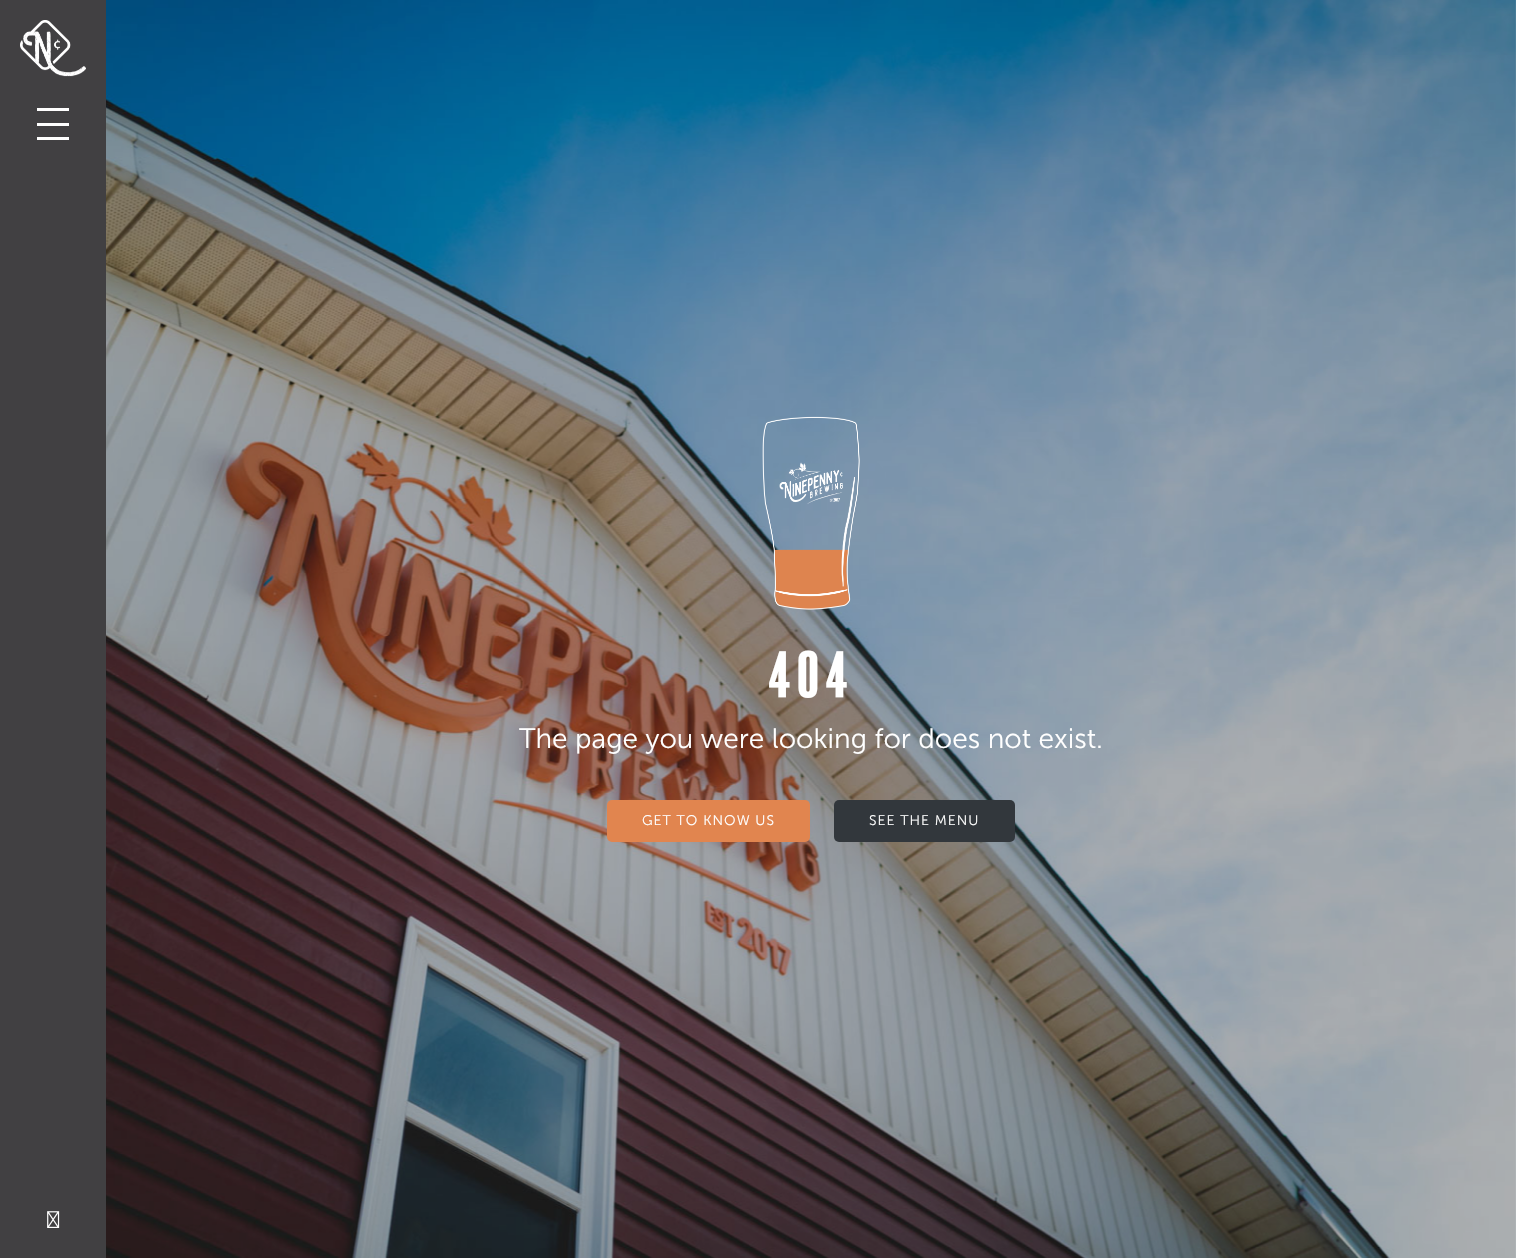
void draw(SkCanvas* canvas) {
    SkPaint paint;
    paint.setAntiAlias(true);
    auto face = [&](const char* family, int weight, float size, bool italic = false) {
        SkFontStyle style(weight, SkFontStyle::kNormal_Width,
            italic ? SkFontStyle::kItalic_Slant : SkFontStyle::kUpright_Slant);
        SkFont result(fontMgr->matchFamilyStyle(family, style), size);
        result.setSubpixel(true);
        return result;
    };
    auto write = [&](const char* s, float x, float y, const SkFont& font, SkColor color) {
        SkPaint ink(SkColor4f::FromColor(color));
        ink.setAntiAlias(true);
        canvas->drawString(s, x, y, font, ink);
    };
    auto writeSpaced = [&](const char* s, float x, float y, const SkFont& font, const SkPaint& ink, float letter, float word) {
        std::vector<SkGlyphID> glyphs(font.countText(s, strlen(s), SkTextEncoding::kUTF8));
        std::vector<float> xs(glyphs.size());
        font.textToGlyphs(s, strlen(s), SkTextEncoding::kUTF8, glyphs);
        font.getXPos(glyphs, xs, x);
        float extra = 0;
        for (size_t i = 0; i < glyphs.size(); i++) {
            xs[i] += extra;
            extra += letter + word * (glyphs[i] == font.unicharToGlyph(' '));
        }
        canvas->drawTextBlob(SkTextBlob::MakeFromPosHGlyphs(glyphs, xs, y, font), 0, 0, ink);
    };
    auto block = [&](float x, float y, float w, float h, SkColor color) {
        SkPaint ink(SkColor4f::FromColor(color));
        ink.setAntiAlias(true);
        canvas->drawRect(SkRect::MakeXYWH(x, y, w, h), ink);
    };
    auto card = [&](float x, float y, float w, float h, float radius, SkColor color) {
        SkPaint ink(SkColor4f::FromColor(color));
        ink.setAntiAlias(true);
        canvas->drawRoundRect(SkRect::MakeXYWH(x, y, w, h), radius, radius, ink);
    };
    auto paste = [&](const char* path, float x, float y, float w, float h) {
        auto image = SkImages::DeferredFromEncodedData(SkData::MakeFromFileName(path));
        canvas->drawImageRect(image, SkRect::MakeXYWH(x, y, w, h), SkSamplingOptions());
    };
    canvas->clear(SK_ColorWHITE);
    block(0, 0, 106, 1258, SkColorSetRGB(65, 64, 66));
    paste("pic1.png", 20, 20, 66, 57);
    block(37, 108, 32, 3, SK_ColorWHITE);
    block(37, 123, 32, 3, SK_ColorWHITE);
    block(37, 137, 32, 3, SK_ColorWHITE);
    paste("pic2.png", 47, 1211, 13, 17);
    paste("pic3.png", 106, 0, 1410, 1258);
    paste("pic4.png", 762, 416, 98, 194);
    auto kFont1 = face("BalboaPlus", 400, 60);
    paint.setColor(SK_ColorWHITE);
    writeSpaced("404", 768, 697, kFont1, paint, 2, 0);
    auto kFont2 = face("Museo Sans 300", 300, 28);
    write("The page you were looking for does not exist.", 519, 748, kFont2, SK_ColorWHITE);
    card(607, 800, 203, 42, 5, SkColorSetRGB(225, 133, 79));
    auto kFont3 = face("Museo Sans 300", 300, 14);
    writeSpaced("GET TO KNOW US", 642, 825, kFont3, paint, 1, 0);
    card(834, 800, 181, 42, 5, SkColorSetRGB(50, 55, 60));
    writeSpaced("SEE THE MENU", 869, 825, kFont3, paint, 1, 0);
}
